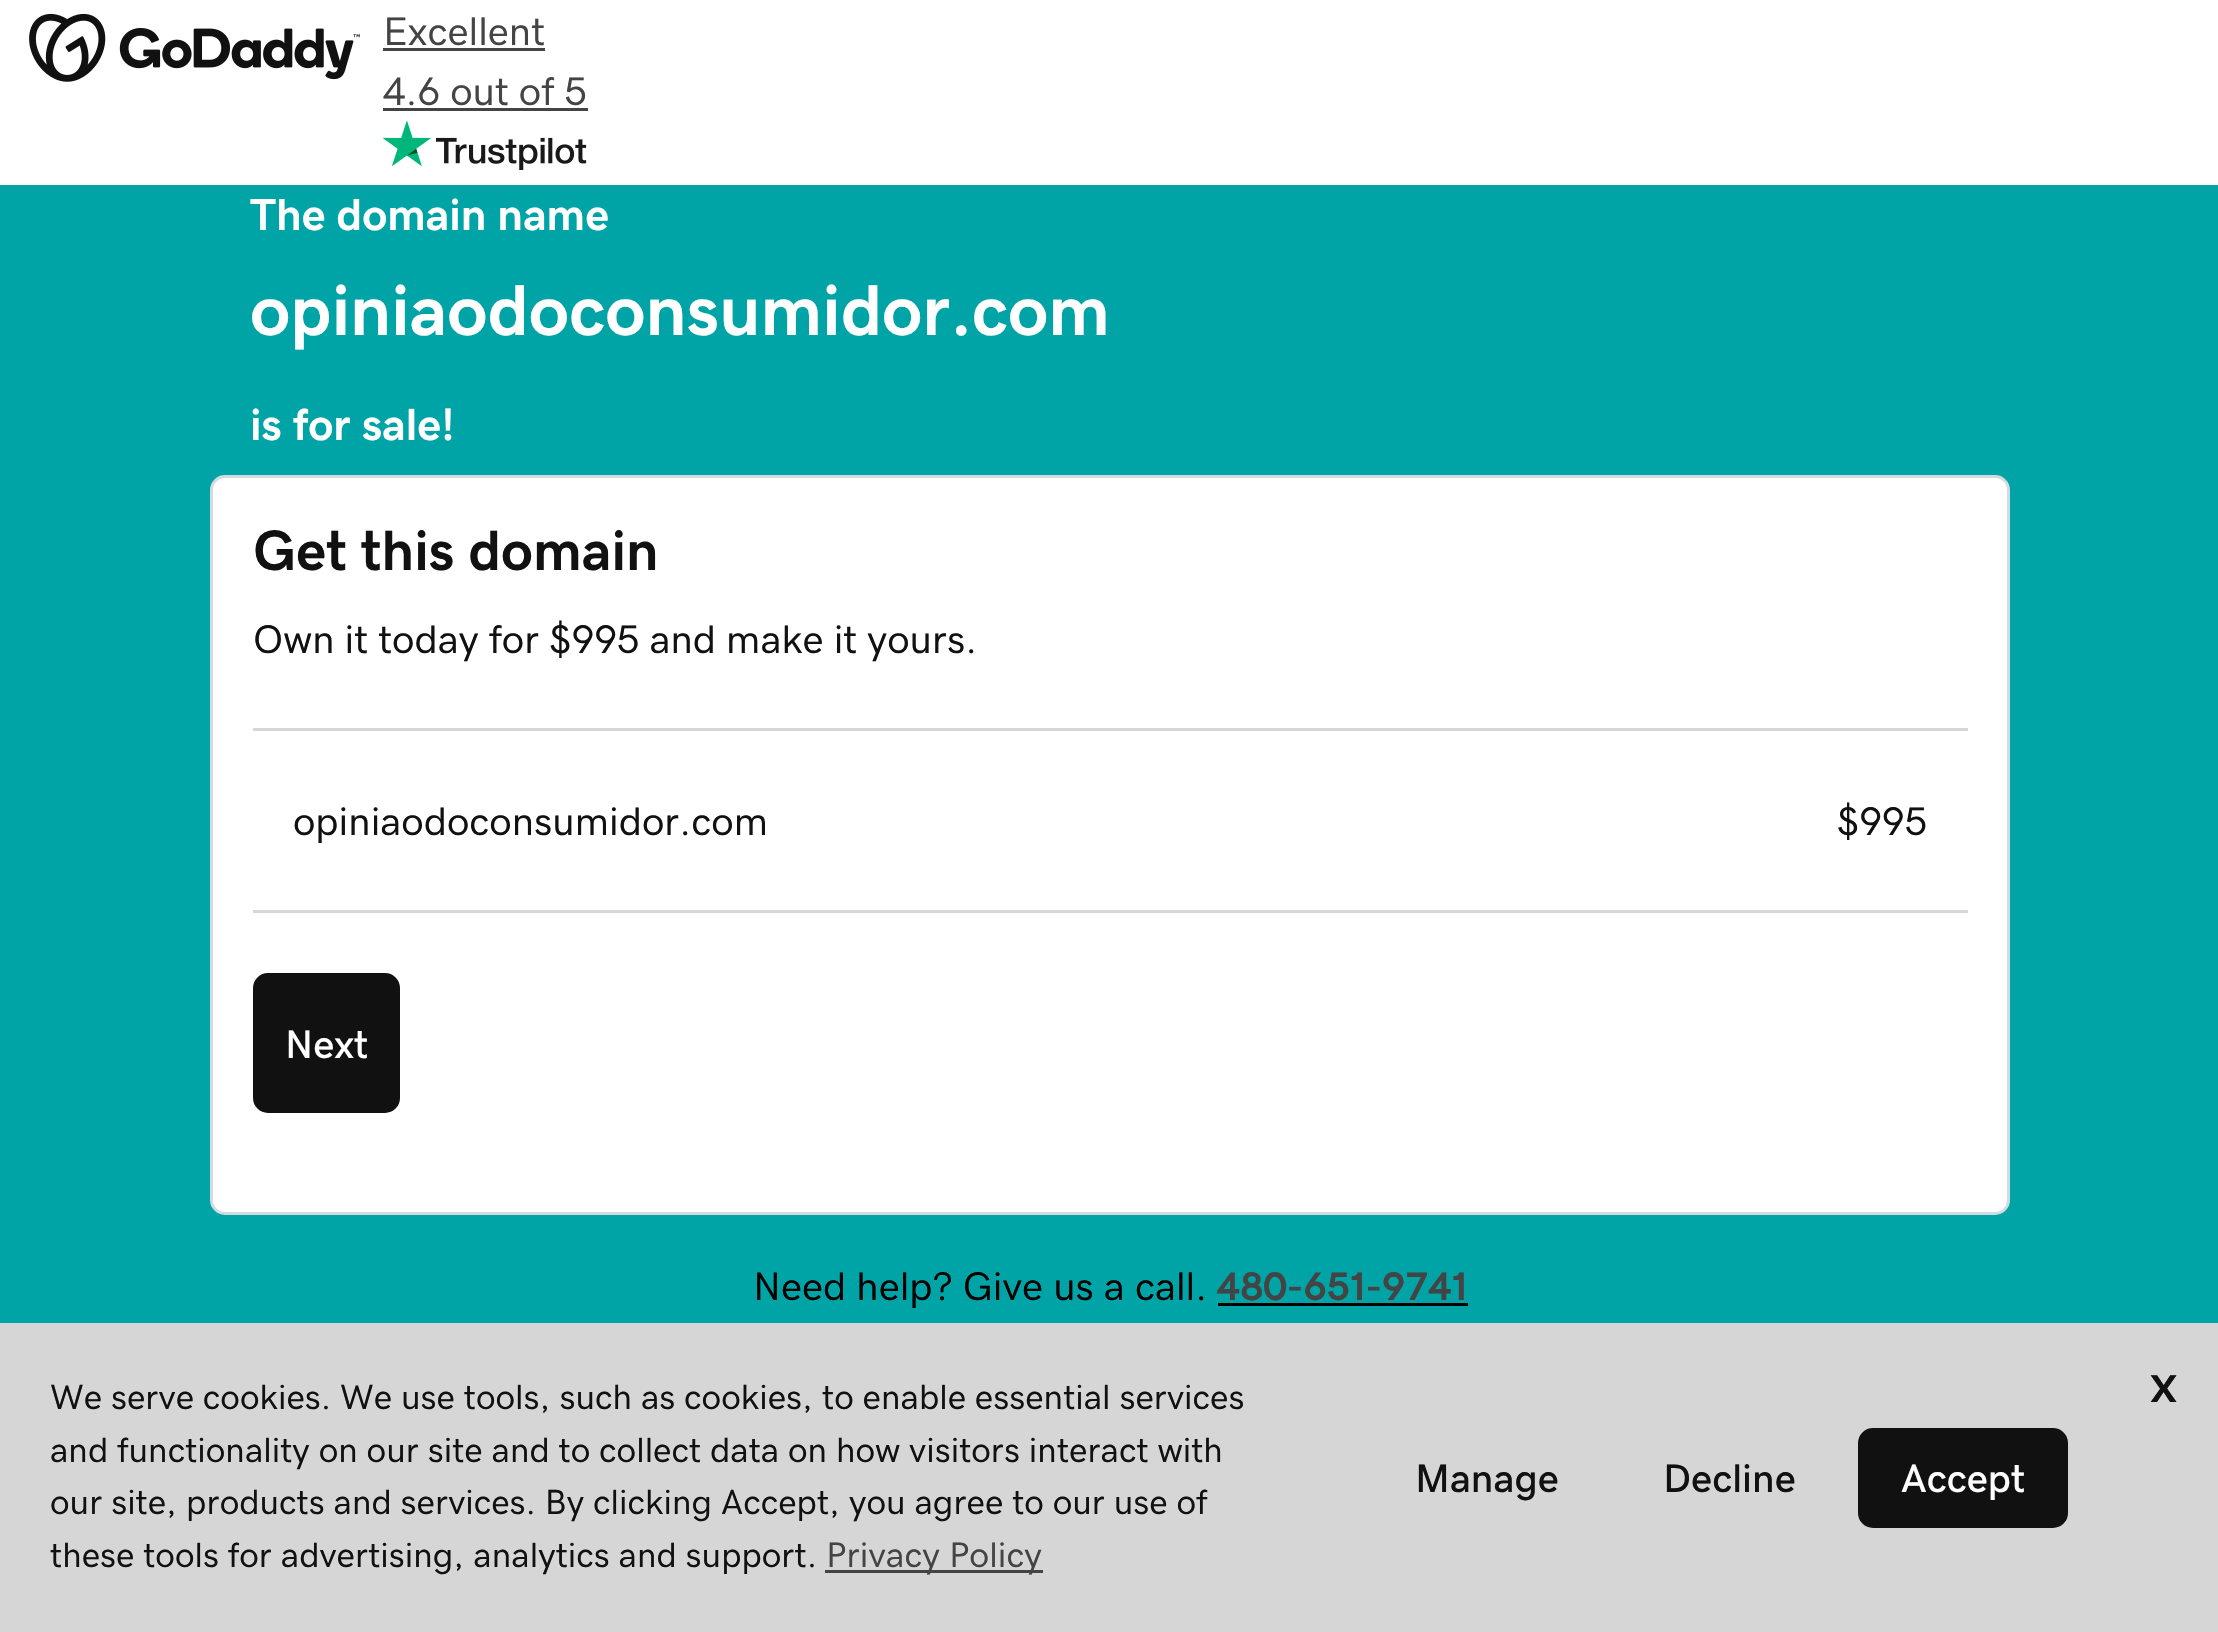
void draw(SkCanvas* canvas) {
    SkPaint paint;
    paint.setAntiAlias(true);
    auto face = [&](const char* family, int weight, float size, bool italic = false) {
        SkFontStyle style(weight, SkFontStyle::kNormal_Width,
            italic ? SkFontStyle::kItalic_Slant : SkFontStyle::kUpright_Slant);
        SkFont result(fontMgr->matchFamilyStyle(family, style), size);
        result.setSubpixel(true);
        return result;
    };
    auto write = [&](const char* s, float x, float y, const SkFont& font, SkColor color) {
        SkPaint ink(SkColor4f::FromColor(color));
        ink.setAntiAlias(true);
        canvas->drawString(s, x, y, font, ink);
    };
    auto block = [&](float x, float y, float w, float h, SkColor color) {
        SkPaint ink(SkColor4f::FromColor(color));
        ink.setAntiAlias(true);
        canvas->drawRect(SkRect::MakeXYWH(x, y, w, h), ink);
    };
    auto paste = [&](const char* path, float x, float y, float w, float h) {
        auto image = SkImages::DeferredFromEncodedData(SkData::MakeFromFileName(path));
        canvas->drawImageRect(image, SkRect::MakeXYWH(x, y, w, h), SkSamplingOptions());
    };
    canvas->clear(SK_ColorWHITE);
    paste("pic1.png", 29, 13, 331, 69);
    auto kFont1 = face("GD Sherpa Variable", 400, 40);
    write("Excellent", 383, 45, kFont1, SkColorSetRGB(68, 68, 68));
    block(383, 48, 162, 3, SkColorSetRGB(68, 68, 68));
    write("4.6 out of 5", 383, 105, kFont1, SkColorSetRGB(68, 68, 68));
    block(383, 108, 205, 3, SkColorSetRGB(68, 68, 68));
    paste("pic2.png", 383, 120, 204, 50);
    block(0, 185, 2218, 1138, SkColorSetRGB(0, 164, 166));
    auto kFont2 = face("GD Sherpa Variable", 700, 45);
    write("The domain name", 250, 230, kFont2, SK_ColorWHITE);
    auto kFont3 = face("GD Sherpa Variable", 700, 72);
    write("opiniaodoconsumidor.com", 250, 335, kFont3, SK_ColorWHITE);
    write("is for sale!", 250, 440, kFont2, SK_ColorWHITE);
    paint.setColor(SK_ColorWHITE);
    canvas->drawRoundRect(SkRect::MakeXYWH(211.5f, 476.5f, 1797, 737), 13.5f, 13.5f, paint);
    paint.setStyle(SkPaint::kStroke_Style);
    paint.setStrokeWidth(3);
    paint.setColor(SkColorSetRGB(212, 219, 224));
    canvas->drawRoundRect(SkRect::MakeXYWH(211.5f, 476.5f, 1797, 737), 13.5f, 13.5f, paint);
    auto kFont4 = face("GD Sherpa Variable", 700, 57);
    write("Get this domain", 253, 570, kFont4, SkColorSetRGB(17, 17, 17));
    write("Own it today for $995 and make it yours.", 253, 653, kFont1, SkColorSetRGB(17, 17, 17));
    block(253, 728, 1715, 3, SkColorSetRGB(214, 214, 214));
    write("opiniaodoconsumidor.com", 293, 835, kFont1, SkColorSetRGB(17, 17, 17));
    write("$995", 1837, 835, kFont1, SkColorSetRGB(17, 17, 17));
    block(253, 910, 1715, 3, SkColorSetRGB(214, 214, 214));
    paint.setStyle(SkPaint::kFill_Style);
    paint.setColor(SkColorSetRGB(17, 17, 17));
    canvas->drawRoundRect(SkRect::MakeXYWH(254.5f, 974.5f, 144, 137), 13.5f, 13.5f, paint);
    paint.setStyle(SkPaint::kStroke_Style);
    canvas->drawRoundRect(SkRect::MakeXYWH(254.5f, 974.5f, 144, 137), 13.5f, 13.5f, paint);
    auto kFont5 = face("GD Sherpa Variable", 500, 40);
    write("Next", 285, 1058, kFont5, SK_ColorWHITE);
    write("Need help? Give us a call.", 753, 1300, kFont1, SK_ColorBLACK);
    auto kFont6 = face("GD Sherpa Variable", 700, 40);
    write("480-651-9741", 1217, 1300, kFont6, SkColorSetRGB(68, 68, 68));
    block(1218, 1303, 250, 3, SK_ColorBLACK);
    block(0, 1323, 2218, 309, SkColorSetRGB(214, 214, 214));
    auto kFont7 = face("GD Sherpa Variable", 400, 35);
    write("We serve cookies. We use tools, such as cookies, to enable essential services", 50, 1409, kFont7, SkColorSetRGB(17, 17, 17));
    write("and functionality on our site and to collect data on how visitors interact with", 50, 1462, kFont7, SkColorSetRGB(17, 17, 17));
    write("our site, products and services. By clicking Accept, you agree to our use of", 50, 1514, kFont7, SkColorSetRGB(17, 17, 17));
    write("these tools for advertising, analytics and support.", 50, 1567, kFont7, SkColorSetRGB(17, 17, 17));
    block(825, 1570, 218, 3, SkColorSetRGB(68, 68, 68));
    auto kFont8 = face("GD Sherpa Variable", 400, 35.5f);
    write("Privacy Policy", 826, 1567, kFont8, SkColorSetRGB(68, 68, 68));
    write("Manage", 1415, 1492, kFont5, SkColorSetRGB(17, 17, 17));
    write("Decline", 1663, 1492, kFont5, SkColorSetRGB(17, 17, 17));
    paint.setStyle(SkPaint::kFill_Style);
    canvas->drawRoundRect(SkRect::MakeXYWH(1859.5f, 1429.5f, 207, 97), 13.5f, 13.5f, paint);
    paint.setStyle(SkPaint::kStroke_Style);
    canvas->drawRoundRect(SkRect::MakeXYWH(1859.5f, 1429.5f, 207, 97), 13.5f, 13.5f, paint);
    write("Accept", 1901, 1492, kFont5, SK_ColorWHITE);
    auto kFont9 = face("GD Sherpa Variable", 500, 55);
    write("x", 2150, 1402, kFont9, SkColorSetRGB(17, 17, 17));
}
